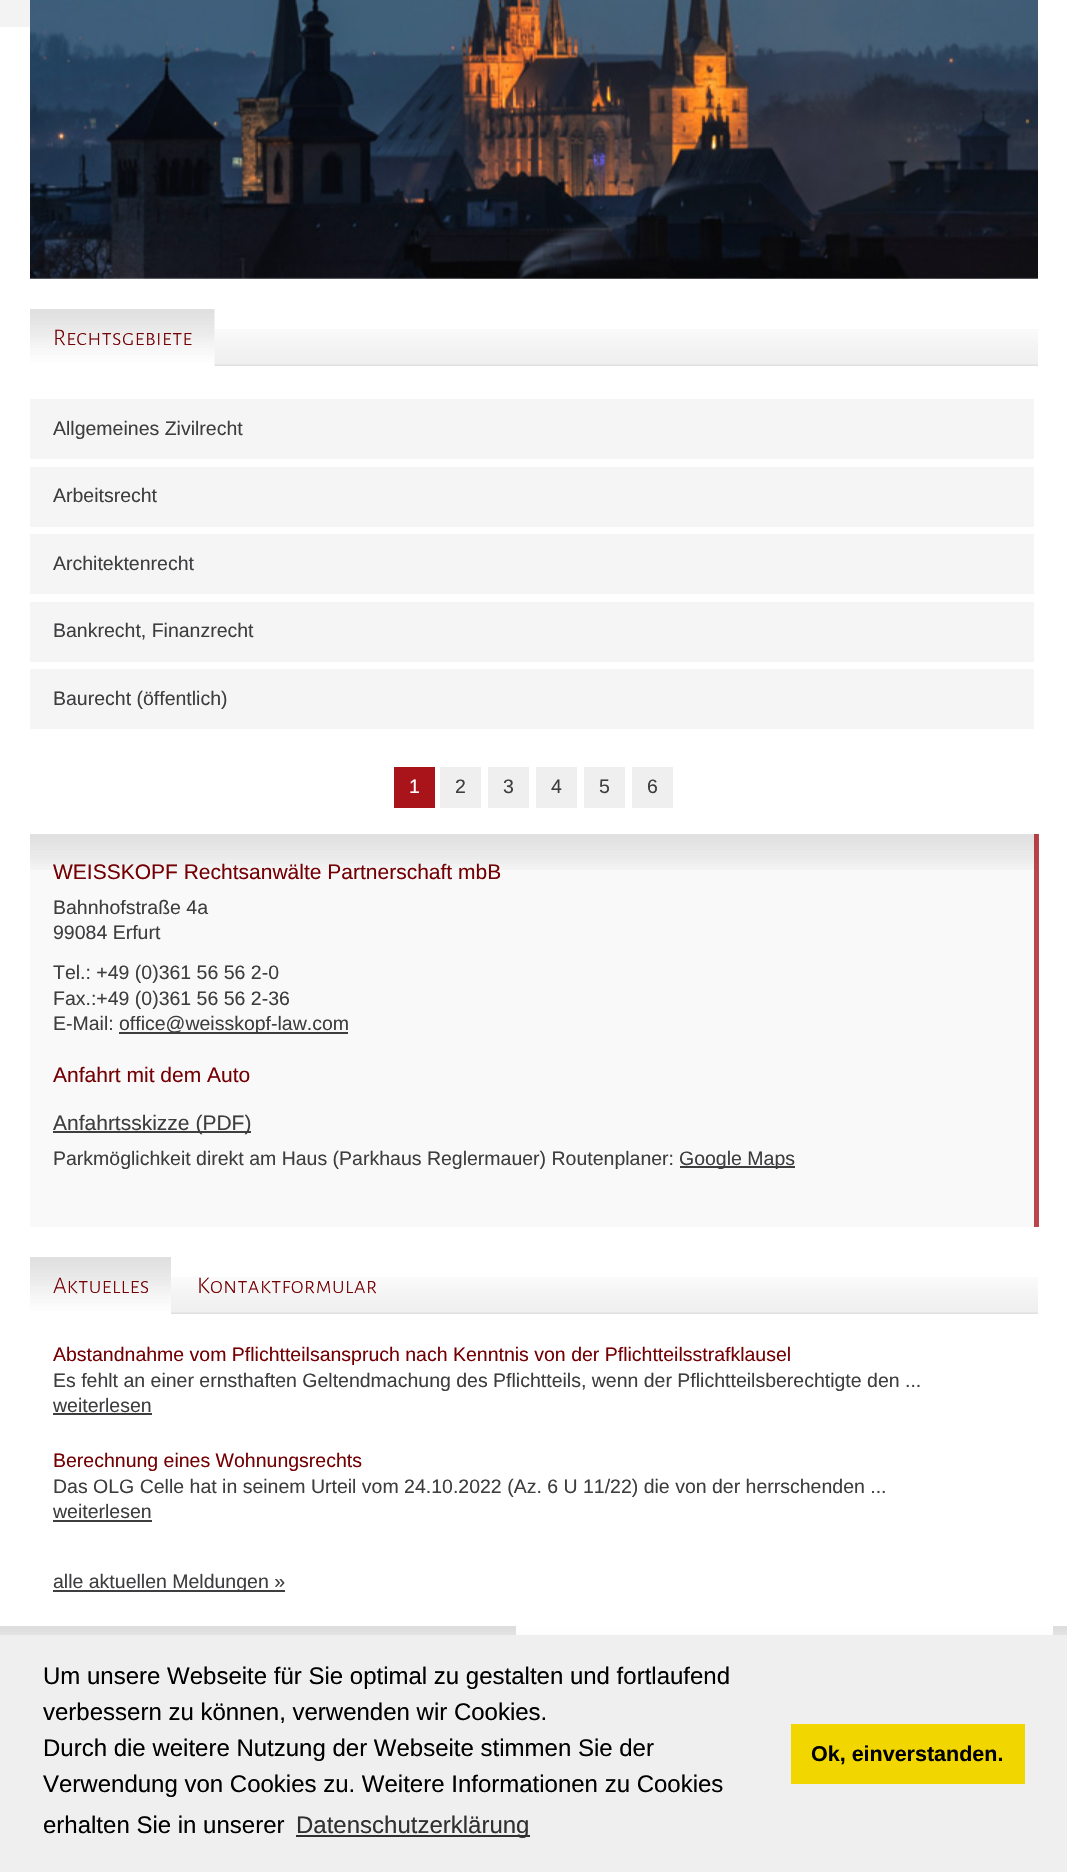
void draw(SkCanvas* canvas) {
    SkPaint paint;
    paint.setAntiAlias(true);
    auto face = [&](const char* family, int weight, float size, bool italic = false) {
        SkFontStyle style(weight, SkFontStyle::kNormal_Width,
            italic ? SkFontStyle::kItalic_Slant : SkFontStyle::kUpright_Slant);
        SkFont result(fontMgr->matchFamilyStyle(family, style), size);
        result.setSubpixel(true);
        return result;
    };
    auto write = [&](const char* s, float x, float y, const SkFont& font, SkColor color) {
        SkPaint ink(SkColor4f::FromColor(color));
        ink.setAntiAlias(true);
        canvas->drawString(s, x, y, font, ink);
    };
    auto block = [&](float x, float y, float w, float h, SkColor color) {
        SkPaint ink(SkColor4f::FromColor(color));
        ink.setAntiAlias(true);
        canvas->drawRect(SkRect::MakeXYWH(x, y, w, h), ink);
    };
    auto paste = [&](const char* path, float x, float y, float w, float h) {
        auto image = SkImages::DeferredFromEncodedData(SkData::MakeFromFileName(path));
        canvas->drawImageRect(image, SkRect::MakeXYWH(x, y, w, h), SkSamplingOptions());
    };
    canvas->clear(SK_ColorWHITE);
    block(0, 0, 30, 27, SkColorSetRGB(243, 243, 243));
    paste("pic1.png", 30, 0, 1008, 279);
    paste("pic2.png", 214, 329, 824, 37);
    paste("pic3.png", 30, 309, 185, 57);
    auto kFont1 = face("Alegreya Sans SC", 300, 24);
    write("Rechtsgebiete", 53, 345, kFont1, SkColorSetRGB(116, 0, 4));
    block(30, 399, 1004, 60, SkColorSetRGB(245, 245, 245));
    auto kFont2 = face("Liberation Sans", 400, 19.5f);
    write("Allgemeines Zivilrecht", 53, 435, kFont2, SkColorSetRGB(62, 62, 64));
    block(30, 467, 1004, 60, SkColorSetRGB(245, 245, 245));
    write("Arbeitsrecht", 53, 502, kFont2, SkColorSetRGB(62, 62, 64));
    block(30, 534, 1004, 60, SkColorSetRGB(245, 245, 245));
    write("Architektenrecht", 53, 570, kFont2, SkColorSetRGB(62, 62, 64));
    block(30, 602, 1004, 60, SkColorSetRGB(245, 245, 245));
    write("Bankrecht, Finanzrecht", 53, 637, kFont2, SkColorSetRGB(62, 62, 64));
    block(30, 669, 1004, 60, SkColorSetRGB(245, 245, 245));
    write("Baurecht (öffentlich)", 53, 705, kFont2, SkColorSetRGB(62, 62, 64));
    block(394, 767, 41, 41, SkColorSetRGB(169, 20, 27));
    write("1", 409, 793, kFont2, SK_ColorWHITE);
    block(440, 767, 41, 41, SkColorSetRGB(239, 239, 239));
    write("2", 455, 793, kFont2, SkColorSetRGB(62, 62, 64));
    block(488, 767, 41, 41, SkColorSetRGB(239, 239, 239));
    write("3", 503, 793, kFont2, SkColorSetRGB(62, 62, 64));
    block(536, 767, 41, 41, SkColorSetRGB(239, 239, 239));
    write("4", 551, 793, kFont2, SkColorSetRGB(62, 62, 64));
    block(584, 767, 41, 41, SkColorSetRGB(239, 239, 239));
    write("5", 599, 793, kFont2, SkColorSetRGB(62, 62, 64));
    block(632, 767, 41, 41, SkColorSetRGB(239, 239, 239));
    write("6", 647, 793, kFont2, SkColorSetRGB(62, 62, 64));
    block(30, 870, 1008, 357, SkColorSetRGB(249, 249, 249));
    paste("pic4.png", 30, 834, 1008, 36);
    block(1034, 834, 5, 393, SkColorSetARGB(191, 164, 8, 15));
    auto kFont3 = face("Liberation Sans", 400, 21);
    write("WEISSKOPF Rechtsanwälte Partnerschaft mbB", 53, 879, kFont3, SkColorSetRGB(116, 0, 4));
    write("Bahnhofstraße 4a", 53, 914, kFont2, SkColorSetRGB(62, 62, 64));
    write("99084 Erfurt", 53, 939, kFont2, SkColorSetRGB(62, 62, 64));
    write("Tel.: +49 (0)361 56 56 2-0", 53, 979, kFont2, SkColorSetRGB(62, 62, 64));
    write("Fax.:+49 (0)361 56 56 2-36", 53, 1005, kFont2, SkColorSetRGB(62, 62, 64));
    write("E-Mail:", 53, 1030, kFont2, SkColorSetRGB(62, 62, 64));
    block(119, 1032, 229, 2, SkColorSetRGB(62, 62, 64));
    write("office@weisskopf-law.com", 119, 1030, kFont2, SkColorSetRGB(62, 62, 64));
    write("Anfahrt mit dem Auto", 53, 1082, kFont3, SkColorSetRGB(116, 0, 4));
    block(53, 1131, 198, 2, SkColorSetRGB(62, 62, 64));
    write("Anfahrtsskizze (PDF)", 53, 1130, kFont3, SkColorSetRGB(62, 62, 64));
    write("Parkmöglichkeit direkt am Haus (Parkhaus Reglermauer) Routenplaner:", 53, 1165, kFont2, SkColorSetRGB(62, 62, 64));
    block(680, 1166, 115, 2, SkColorSetRGB(62, 62, 64));
    write("Google Maps", 679, 1165, kFont2, SkColorSetRGB(62, 62, 64));
    paste("pic5.png", 171, 1277, 867, 37);
    paste("pic6.png", 30, 1257, 141, 57);
    write("Aktuelles", 53, 1293, kFont1, SkColorSetRGB(116, 0, 4));
    write("Kontaktformular", 197, 1293, kFont1, SkColorSetRGB(116, 0, 4));
    write("Abstandnahme vom Pflichtteilsanspruch nach Kenntnis von der Pflichtteilsstrafklausel", 53, 1361, kFont2, SkColorSetRGB(116, 0, 4));
    write("Es fehlt an einer ernsthaften Geltendmachung des Pflichtteils, wenn der Pflichtteilsberechtigte den ...", 53, 1387, kFont2, SkColorSetRGB(62, 62, 64));
    write("weiterlesen", 53, 1412, kFont2, SkColorSetRGB(62, 62, 64));
    block(53, 1413, 99, 2, SkColorSetRGB(62, 62, 64));
    write("Berechnung eines Wohnungsrechts", 53, 1467, kFont2, SkColorSetRGB(116, 0, 4));
    write("Das OLG Celle hat in seinem Urteil vom 24.10.2022 (Az. 6 U 11/22) die von der herrschenden ...", 53, 1493, kFont2, SkColorSetRGB(62, 62, 64));
    write("weiterlesen", 53, 1518, kFont2, SkColorSetRGB(62, 62, 64));
    block(53, 1520, 99, 2, SkColorSetRGB(62, 62, 64));
    block(53, 1590, 232, 2, SkColorSetRGB(62, 62, 64));
    write("alle aktuellen Meldungen »", 53, 1588, kFont2, SkColorSetRGB(62, 62, 64));
    paste("pic7.png", 0, 1626, 1067, 9);
    paste("pic8.png", 516, 1626, 537, 9);
    block(0, 1635, 1067, 237, SkColorSetRGB(239, 239, 239));
    auto kFont4 = face("Liberation Sans", 400, 24);
    write("Um unsere Webseite für Sie optimal zu gestalten und fortlaufend", 43, 1684, kFont4, SK_ColorBLACK);
    write("verbessern zu können, verwenden wir Cookies.", 43, 1720, kFont4, SK_ColorBLACK);
    write("Durch die weitere Nutzung der Webseite stimmen Sie der", 43, 1756, kFont4, SK_ColorBLACK);
    write("Verwendung von Cookies zu. Weitere Informationen zu Cookies", 43, 1792, kFont4, SK_ColorBLACK);
    write("erhalten Sie in unserer", 43, 1833, kFont4, SK_ColorBLACK);
    block(296, 1835, 234, 2, SkColorSetRGB(48, 48, 48));
    write("Datenschutzerklärung", 296, 1833, kFont4, SkColorSetRGB(48, 48, 48));
    block(791, 1724, 234, 60, SkColorSetRGB(241, 214, 0));
    auto kFont5 = face("Liberation Sans", 700, 21.5f);
    write("Ok, einverstanden.", 811, 1761, kFont5, SK_ColorBLACK);
}
